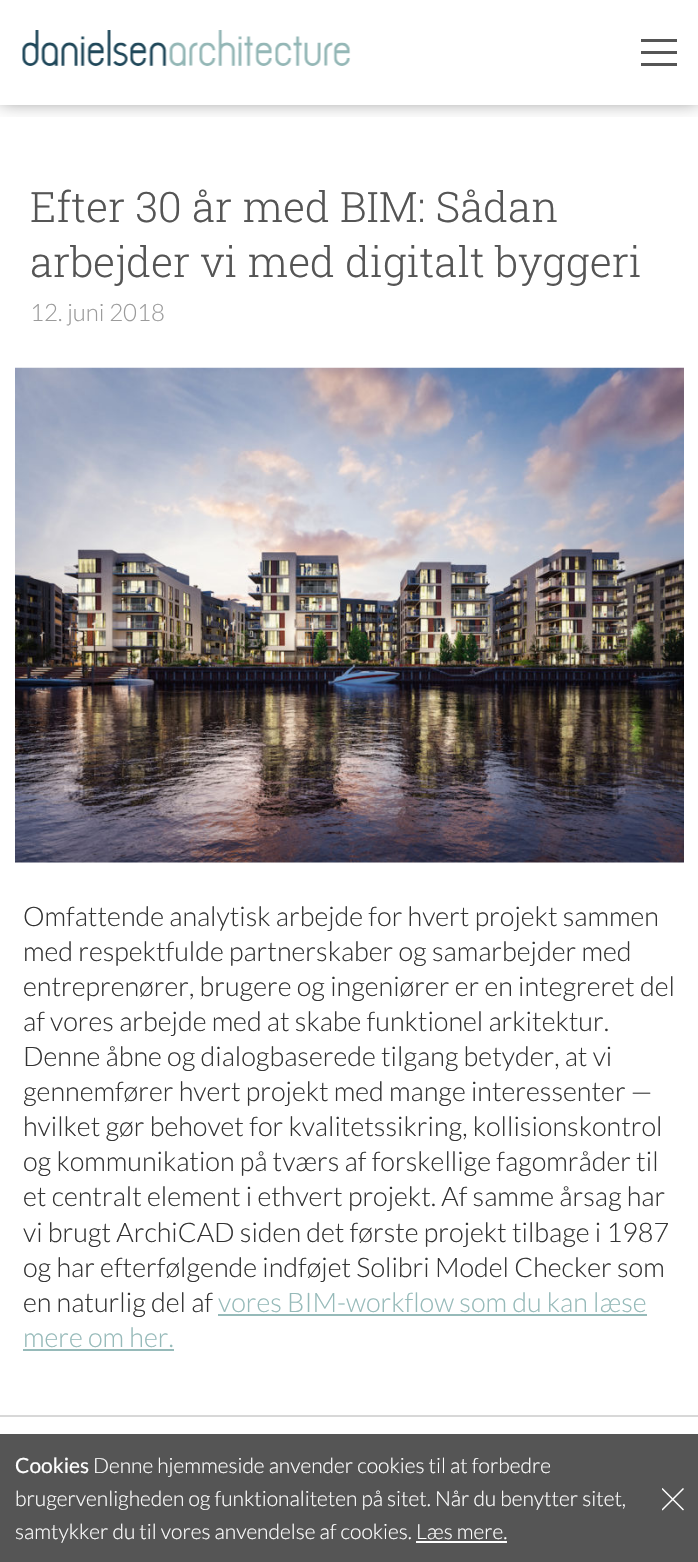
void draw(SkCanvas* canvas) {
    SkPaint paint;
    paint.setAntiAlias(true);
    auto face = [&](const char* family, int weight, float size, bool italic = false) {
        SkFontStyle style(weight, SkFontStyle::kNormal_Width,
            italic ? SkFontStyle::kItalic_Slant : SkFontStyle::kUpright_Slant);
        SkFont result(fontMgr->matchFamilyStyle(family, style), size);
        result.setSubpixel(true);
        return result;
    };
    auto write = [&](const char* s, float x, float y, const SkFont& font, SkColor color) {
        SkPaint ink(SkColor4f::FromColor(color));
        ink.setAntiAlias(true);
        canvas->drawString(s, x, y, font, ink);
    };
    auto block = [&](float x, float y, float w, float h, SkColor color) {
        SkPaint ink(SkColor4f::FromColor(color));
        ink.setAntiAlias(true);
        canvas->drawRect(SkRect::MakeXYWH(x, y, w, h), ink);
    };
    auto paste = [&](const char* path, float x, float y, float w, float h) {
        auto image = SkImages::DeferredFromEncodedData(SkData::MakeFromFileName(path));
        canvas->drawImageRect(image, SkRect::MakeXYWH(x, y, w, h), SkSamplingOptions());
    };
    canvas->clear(SK_ColorWHITE);
    canvas->save();
    canvas->clipRect(SkRect::MakeXYWH(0, 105, 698, 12));
    paint.setColor(SkColorSetARGB(130, 0, 0, 0));
    paint.setMaskFilter(SkMaskFilter::MakeBlur(kNormal_SkBlurStyle, 9));
    canvas->drawRect(SkRect::MakeXYWH(0, -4, 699, 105), paint);
    paint.setMaskFilter(nullptr);
    canvas->restore();
    paste("pic1.png", 22, 30, 329, 36);
    block(641, 39, 36, 3, SkColorSetRGB(85, 85, 85));
    block(641, 51, 36, 3, SkColorSetRGB(85, 85, 85));
    block(641, 63, 36, 3, SkColorSetRGB(85, 85, 85));
    auto kFont1 = face("Roboto Slab", 300, 42);
    write("Efter 30 år med BIM: Sådan", 30, 222, kFont1, SkColorSetRGB(85, 85, 85));
    write("arbejder vi med digitalt byggeri", 30, 277, kFont1, SkColorSetRGB(85, 85, 85));
    auto kFont2 = face("Lato", 300, 24);
    write("12. juni 2018", 30, 321, kFont2, SkColorSetRGB(155, 155, 155));
    paste("pic2.png", 15, 367, 669, 496);
    auto kFont3 = face("Lato", 300, 27);
    write("Omfattende analytisk arbejde for hvert projekt sammen", 23, 926, kFont3, SkColorSetRGB(51, 51, 51));
    write("med respektfulde partnerskaber og samarbejder med", 23, 961, kFont3, SkColorSetRGB(51, 51, 51));
    write("entreprenører, brugere og ingeniører er en integreret del", 23, 996, kFont3, SkColorSetRGB(51, 51, 51));
    write("af vores arbejde med at skabe funktionel arkitektur.", 23, 1031, kFont3, SkColorSetRGB(51, 51, 51));
    write("Denne åbne og dialogbaserede tilgang betyder, at vi", 23, 1066, kFont3, SkColorSetRGB(51, 51, 51));
    write("gennemfører hvert projekt med mange interessenter —", 23, 1101, kFont3, SkColorSetRGB(51, 51, 51));
    write("hvilket gør behovet for kvalitetssikring, kollisionskontrol", 23, 1136, kFont3, SkColorSetRGB(51, 51, 51));
    write("og kommunikation på tværs af forskellige fagområder til", 23, 1171, kFont3, SkColorSetRGB(51, 51, 51));
    write("et centralt element i ethvert projekt. Af samme årsag har", 23, 1206, kFont3, SkColorSetRGB(51, 51, 51));
    write("vi brugt ArchiCAD siden det første projekt tilbage i 1987", 23, 1242, kFont3, SkColorSetRGB(51, 51, 51));
    write("og har efterfølgende indføjet Solibri Model Checker som", 23, 1277, kFont3, SkColorSetRGB(51, 51, 51));
    write("en naturlig del af", 23, 1312, kFont3, SkColorSetRGB(51, 51, 51));
    write("vores BIM-workflow som du kan læse", 218, 1312, kFont3, SkColorSetRGB(150, 186, 185));
    block(218, 1314, 429, 2, SkColorSetRGB(150, 186, 185));
    write("mere om her.", 23, 1347, kFont3, SkColorSetRGB(150, 186, 185));
    block(23, 1349, 151, 2, SkColorSetRGB(150, 186, 185));
    block(0, 1415, 698, 2, SkColorSetRGB(216, 216, 216));
    block(0, 1434, 698, 128, SkColorSetRGB(85, 85, 85));
    auto kFont4 = face("Lato", 400, 21);
    write("Cookies", 15, 1473, kFont4, SK_ColorWHITE);
    auto kFont5 = face("Lato", 300, 21);
    write("Denne hjemmeside anvender cookies til at forbedre", 93, 1473, kFont5, SK_ColorWHITE);
    write("brugervenligheden og funktionaliteten på sitet. Når du benytter sitet,", 15, 1506, kFont5, SK_ColorWHITE);
    write("samtykker du til vores anvendelse af cookies. Læs mere.", 15, 1539, kFont5, SK_ColorWHITE);
    block(416, 1541, 91, 2, SK_ColorWHITE);
    canvas->save();
    canvas->clipRect(SkRect::MakeXYWH(662, 1488, 22, 23));
    paint.setStyle(SkPaint::kStroke_Style);
    paint.setStrokeWidth(1.5f);
    paint.setStrokeCap(SkPaint::kSquare_Cap);
    paint.setColor(SK_ColorWHITE);
    canvas->drawPath(SkPathBuilder().moveTo(683, 1489).lineTo(662.5f, 1509.5f).moveTo(683, 1509.5f).lineTo(662.5f, 1489).detach(), paint);
    canvas->restore();
}
